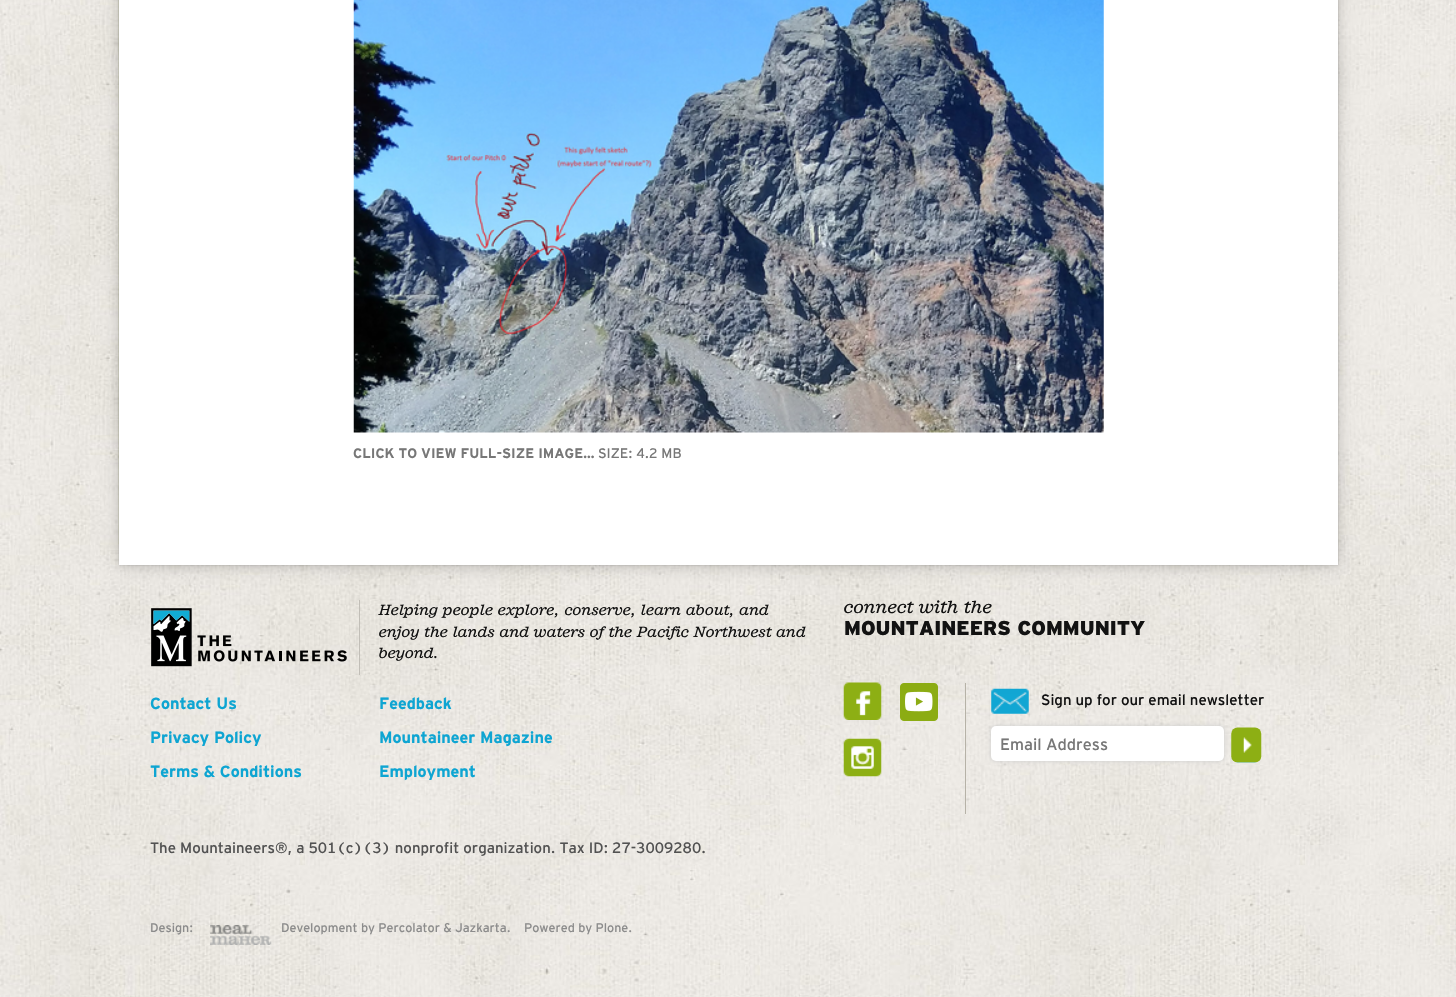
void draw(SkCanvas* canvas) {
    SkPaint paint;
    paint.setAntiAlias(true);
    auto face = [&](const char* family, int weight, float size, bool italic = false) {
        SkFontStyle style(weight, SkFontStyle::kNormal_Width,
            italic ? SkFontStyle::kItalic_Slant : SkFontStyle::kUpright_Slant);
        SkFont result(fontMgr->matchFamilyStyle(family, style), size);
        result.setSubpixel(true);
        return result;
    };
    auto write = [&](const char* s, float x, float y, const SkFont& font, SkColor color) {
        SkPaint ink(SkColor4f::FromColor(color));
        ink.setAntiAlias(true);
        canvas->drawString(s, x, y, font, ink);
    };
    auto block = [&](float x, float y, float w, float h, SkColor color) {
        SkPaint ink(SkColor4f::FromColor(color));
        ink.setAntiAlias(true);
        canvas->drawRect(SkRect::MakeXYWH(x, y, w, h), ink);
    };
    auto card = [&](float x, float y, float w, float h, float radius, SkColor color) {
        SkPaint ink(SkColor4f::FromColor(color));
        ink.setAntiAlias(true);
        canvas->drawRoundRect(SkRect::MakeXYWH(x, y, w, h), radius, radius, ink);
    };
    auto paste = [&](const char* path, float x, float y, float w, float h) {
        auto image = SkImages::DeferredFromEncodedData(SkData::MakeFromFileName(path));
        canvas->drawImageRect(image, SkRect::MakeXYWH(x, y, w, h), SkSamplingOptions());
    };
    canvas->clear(SK_ColorWHITE);
    paste("pic1.png", 0, 0, 1456, 997);
    paste("pic2.png", 118, 0, 1, 545);
    paint.setColor(SkColorSetARGB(51, 0, 0, 0));
    paint.setMaskFilter(SkMaskFilter::MakeBlur(kNormal_SkBlurStyle, 7.5f));
    canvas->drawRect(SkRect::MakeXYWH(119, -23, 1219, 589), paint);
    paint.setMaskFilter(nullptr);
    paint.setMaskFilter(SkMaskFilter::MakeBlur(kNormal_SkBlurStyle, 1));
    canvas->drawRect(SkRect::MakeXYWH(119, -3, 1219, 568), paint);
    paint.setMaskFilter(nullptr);
    block(119, 0, 1219, 565, SK_ColorWHITE);
    paste("pic3.png", 353, 0, 751, 433);
    auto kFont1 = face("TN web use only", 700, 13.75f);
    write("CLICK TO VIEW FULL-SIZE IMAGE…", 353, 458, kFont1, SkColorSetRGB(119, 119, 119));
    auto kFont2 = face("TN web use only", 400, 13.75f);
    write("SIZE: 4.2 MB", 598, 458, kFont2, SkColorSetRGB(119, 119, 119));
    paste("pic4.png", 151, 608, 196, 59);
    block(359, 600, 1, 75, SkColorSetRGB(193, 190, 183));
    auto kFont3 = face("TN web use only", 400, 13.75f, true);
    write("Helping people explore, conserve, learn about, and", 379, 615, kFont3, SkColorSetRGB(18, 18, 18));
    write("enjoy the lands and waters of the Pacific Northwest and", 379, 637, kFont3, SkColorSetRGB(18, 18, 18));
    write("beyond.", 379, 658, kFont3, SkColorSetRGB(18, 18, 18));
    auto kFont4 = face("TN web use only", 700, 16.25f);
    write("Contact Us", 150, 709, kFont4, SkColorSetRGB(14, 165, 210));
    write("Feedback", 379, 709, kFont4, SkColorSetRGB(14, 165, 210));
    write("Privacy Policy", 150, 743, kFont4, SkColorSetRGB(14, 165, 210));
    write("Mountaineer Magazine", 379, 743, kFont4, SkColorSetRGB(14, 165, 210));
    write("Terms & Conditions", 150, 777, kFont4, SkColorSetRGB(14, 165, 210));
    write("Employment", 379, 777, kFont4, SkColorSetRGB(14, 165, 210));
    auto kFont5 = face("TN web use only", 400, 16.25f, true);
    write("connect with the", 844, 613, kFont5, SkColorSetRGB(18, 18, 18));
    auto kFont6 = face("TN web use only", 900, 20);
    write("MOUNTAINEERS COMMUNITY", 844, 635, kFont6, SkColorSetRGB(18, 18, 18));
    block(965, 683, 1, 131, SkColorSetRGB(182, 178, 167));
    paste("pic5.png", 843, 682, 39, 38);
    paste("pic6.png", 900, 683, 38, 38);
    paste("pic7.png", 843, 738, 39, 39);
    paste("pic8.png", 991, 688, 38, 26);
    auto kFont7 = face("TN web use only", 400, 15);
    write("Sign up for our email newsletter", 1041, 705, kFont7, SkColorSetRGB(18, 18, 18));
    paint.setColor(SkColorSetRGB(204, 204, 204));
    paint.setMaskFilter(SkMaskFilter::MakeBlur(kNormal_SkBlurStyle, 2));
    canvas->drawRoundRect(SkRect::MakeXYWH(991, 726, 233, 35), 5, 5, paint);
    paint.setMaskFilter(nullptr);
    card(991, 726, 233, 35, 5, SK_ColorWHITE);
    auto kFont8 = face("TN web use only", 400, 16.25f);
    write("Email Address", 1000, 750, kFont8, SkColorSetRGB(119, 119, 119));
    paste("pic9.png", 1231, 727, 31, 36);
    write("The Mountaineers®, a 501(c)(3) nonprofit organization. Tax ID: 27-3009280.", 150, 853, kFont7, SkColorSetRGB(82, 82, 82));
    auto kFont9 = face("TN web use only", 400, 12.5f);
    write("Design:", 150, 932, kFont9, SkColorSetRGB(140, 140, 140));
    paste("pic10.png", 210, 925, 62, 20);
    write("Development by Percolator & Jazkarta.", 281, 932, kFont9, SkColorSetRGB(140, 140, 140));
    write("Powered by Plone.", 524, 932, kFont9, SkColorSetRGB(140, 140, 140));
}
